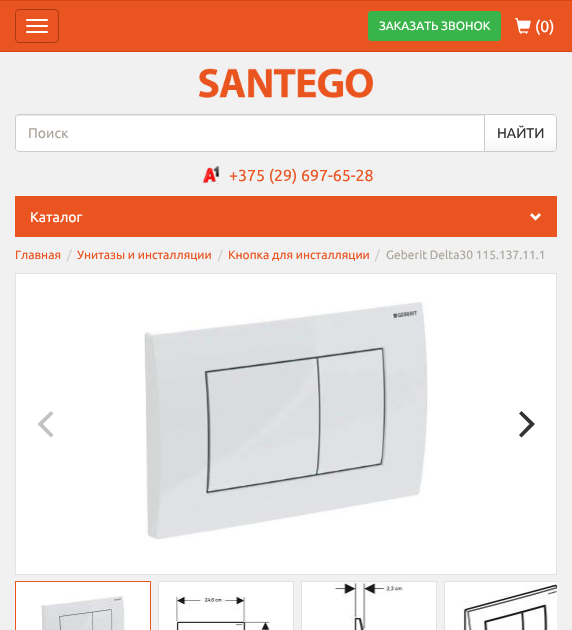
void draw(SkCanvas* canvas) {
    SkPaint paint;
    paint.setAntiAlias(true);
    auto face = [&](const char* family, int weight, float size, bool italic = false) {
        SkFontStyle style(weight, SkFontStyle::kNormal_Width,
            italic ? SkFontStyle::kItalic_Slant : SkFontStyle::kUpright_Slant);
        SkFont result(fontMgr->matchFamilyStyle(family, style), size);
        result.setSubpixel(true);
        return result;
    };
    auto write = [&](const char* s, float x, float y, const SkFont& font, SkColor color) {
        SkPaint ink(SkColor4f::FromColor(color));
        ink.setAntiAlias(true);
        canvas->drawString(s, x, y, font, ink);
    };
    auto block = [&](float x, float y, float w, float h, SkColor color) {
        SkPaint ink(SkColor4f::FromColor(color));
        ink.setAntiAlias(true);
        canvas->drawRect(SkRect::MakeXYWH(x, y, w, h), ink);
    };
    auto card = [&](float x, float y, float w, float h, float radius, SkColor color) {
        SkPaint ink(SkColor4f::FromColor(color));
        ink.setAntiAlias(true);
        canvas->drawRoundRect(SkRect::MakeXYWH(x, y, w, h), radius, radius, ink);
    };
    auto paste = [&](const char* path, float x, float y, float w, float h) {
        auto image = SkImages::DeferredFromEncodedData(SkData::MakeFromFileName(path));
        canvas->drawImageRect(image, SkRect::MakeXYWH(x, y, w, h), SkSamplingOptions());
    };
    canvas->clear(SkColorSetRGB(241, 241, 241));
    block(0, 1, 572, 50, SkColorSetRGB(233, 84, 32));
    block(0, 0, 572, 1, SkColorSetRGB(211, 70, 21));
    block(0, 51, 572, 1, SkColorSetRGB(211, 70, 21));
    paint.setStyle(SkPaint::kStroke_Style);
    paint.setStrokeWidth(1);
    paint.setColor(SkColorSetRGB(172, 57, 17));
    canvas->drawRoundRect(SkRect::MakeXYWH(15.5f, 9.5f, 43, 33), 3.5f, 3.5f, paint);
    card(26, 19, 22, 2, 1, SK_ColorWHITE);
    card(26, 25, 22, 2, 1, SK_ColorWHITE);
    card(26, 31, 22, 2, 1, SK_ColorWHITE);
    paint.setStyle(SkPaint::kFill_Style);
    paint.setColor(SkColorSetRGB(56, 180, 74));
    canvas->drawRoundRect(SkRect::MakeXYWH(368.5f, 11.5f, 132, 29), 2.5f, 2.5f, paint);
    paint.setStyle(SkPaint::kStroke_Style);
    canvas->drawRoundRect(SkRect::MakeXYWH(368.5f, 11.5f, 132, 29), 2.5f, 2.5f, paint);
    auto kFont1 = face("Ubuntu", 400, 12);
    write("ЗАКАЗАТЬ ЗВОНОК", 379, 30, kFont1, SK_ColorWHITE);
    paste("pic1.png", 515, 18, 16, 16);
    auto kFont2 = face("Ubuntu", 400, 16);
    write("(0)", 535, 32, kFont2, SK_ColorWHITE);
    paste("pic2.png", 199, 68, 174, 30);
    paint.setStyle(SkPaint::kFill_Style);
    paint.setColor(SK_ColorWHITE);
    canvas->drawPath(SkPathBuilder().moveTo(19, 114).lineTo(485, 114).lineTo(485, 152).lineTo(19, 152).cubicTo(17, 152, 15, 150, 15, 148).lineTo(15, 118).cubicTo(15, 116, 17, 114, 19, 114).close().detach(), paint);
    paint.setColor(SkColorSetRGB(236, 236, 236));
    canvas->drawPath(SkPathBuilder().moveTo(19, 116).lineTo(484, 116).lineTo(484, 115).lineTo(19, 115).cubicTo(17, 115, 16, 117, 16, 119).cubicTo(16, 117, 17, 116, 19, 116).close().detach(), paint);
    paint.setStyle(SkPaint::kStroke_Style);
    paint.setColor(SkColorSetRGB(204, 204, 204));
    canvas->drawPath(SkPathBuilder().moveTo(19, 114.5f).lineTo(484.5f, 114.5f).lineTo(484.5f, 151.5f).lineTo(19, 151.5f).cubicTo(17, 151.5f, 15.5f, 150, 15.5f, 148).lineTo(15.5f, 118).cubicTo(15.5f, 116, 17, 114.5f, 19, 114.5f).close().detach(), paint);
    auto kFont3 = face("Ubuntu", 400, 14);
    write("Поиск", 28, 138, kFont3, SkColorSetRGB(174, 167, 159));
    paint.setStyle(SkPaint::kFill_Style);
    {
        const SkColor colors[] = {SK_ColorWHITE, SK_ColorWHITE, SkColorSetRGB(245, 245, 245)};
        const float stops[] = {0, 0.6f, 1};
        const SkPoint ends[] = {{521, 115}, {521, 151}};
        paint.setShader(SkGradientShader::MakeLinear(ends, colors, stops, 3, SkTileMode::kClamp));
        paint.setAlpha(255);
    }
    canvas->drawRect(SkRect::MakeXYWH(485, 115, 71, 36), paint);
    paint.setStyle(SkPaint::kStroke_Style);
    paint.setShader(nullptr);
    paint.setColor(SkColorSetRGB(204, 204, 204));
    canvas->drawPath(SkPathBuilder().moveTo(484.5f, 114.5f).lineTo(553, 114.5f).cubicTo(555, 114.5f, 556.5f, 116, 556.5f, 118).lineTo(556.5f, 148).cubicTo(556.5f, 150, 555, 151.5f, 553, 151.5f).lineTo(484.5f, 151.5f).close().detach(), paint);
    write("НАЙТИ", 497, 138, kFont3, SkColorSetRGB(51, 51, 51));
    paste("pic3.png", 202, 166, 18, 18);
    write("+375 (29) 697-65-28", 229, 181, kFont2, SkColorSetRGB(233, 84, 32));
    block(15, 196, 542, 41, SkColorSetRGB(233, 84, 32));
    write("Каталог", 30, 222, kFont3, SK_ColorWHITE);
    paste("pic4.png", 530, 213, 11, 8);
    write("Главная", 15, 259, kFont1, SkColorSetRGB(233, 84, 32));
    write("/", 67, 259, kFont1, SkColorSetRGB(204, 204, 204));
    write("Унитазы и инсталляции", 77, 259, kFont1, SkColorSetRGB(233, 84, 32));
    write("/", 218, 259, kFont1, SkColorSetRGB(204, 204, 204));
    write("Кнопка для инсталляции", 228, 259, kFont1, SkColorSetRGB(233, 84, 32));
    write("/", 375, 259, kFont1, SkColorSetRGB(204, 204, 204));
    write("Geberit Delta30 115.137.11.1", 386, 259, kFont1, SkColorSetRGB(174, 167, 159));
    paint.setColor(SkColorSetRGB(224, 226, 231));
    canvas->drawRect(SkRect::MakeXYWH(15.5f, 273.5f, 541, 301), paint);
    block(16, 274, 540, 300, SK_ColorWHITE);
    paste("pic5.png", 144, 301, 284, 239);
    paint.setStyle(SkPaint::kFill_Style);
    paint.setColor(SkColorSetRGB(194, 194, 194));
    canvas->drawPath(SkPathBuilder().moveTo(37.5f, 424).lineTo(51, 437.5f).lineTo(53.5f, 435).lineTo(43, 424).lineTo(53.5f, 413.5f).lineTo(51, 411).close().detach(), paint);
    paint.setColor(SkColorSetRGB(51, 51, 51));
    canvas->drawPath(SkPathBuilder().moveTo(535, 424).lineTo(521.5f, 411).lineTo(519, 413.5f).lineTo(529.5f, 424).lineTo(519, 435).lineTo(521.5f, 437.5f).close().detach(), paint);
    paint.setColor(SK_ColorWHITE);
    canvas->drawRect(SkRect::MakeXYWH(15.5f, 581.5f, 135, 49), paint);
    paint.setStyle(SkPaint::kStroke_Style);
    paint.setColor(SkColorSetRGB(233, 84, 32));
    canvas->drawRect(SkRect::MakeXYWH(15.5f, 581.5f, 135, 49), paint);
    paste("pic6.png", 41, 596, 86, 34);
    paint.setStyle(SkPaint::kFill_Style);
    paint.setColor(SK_ColorWHITE);
    canvas->drawRect(SkRect::MakeXYWH(158.5f, 581.5f, 135, 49), paint);
    paint.setStyle(SkPaint::kStroke_Style);
    paint.setColor(SkColorSetRGB(224, 226, 231));
    canvas->drawRect(SkRect::MakeXYWH(158.5f, 581.5f, 135, 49), paint);
    paste("pic7.png", 176, 596, 96, 34);
    paint.setStyle(SkPaint::kFill_Style);
    paint.setColor(SK_ColorWHITE);
    canvas->drawRect(SkRect::MakeXYWH(301.5f, 581.5f, 135, 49), paint);
    paint.setStyle(SkPaint::kStroke_Style);
    paint.setColor(SkColorSetRGB(224, 226, 231));
    canvas->drawRect(SkRect::MakeXYWH(301.5f, 581.5f, 135, 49), paint);
    paste("pic8.png", 334, 582, 69, 48);
    block(445, 582, 112, 48, SK_ColorWHITE);
    canvas->save();
    canvas->clipRect(SkRect::MakeXYWH(15, 581, 542, 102));
    canvas->drawRect(SkRect::MakeXYWH(444.5f, 581.5f, 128, 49), paint);
    canvas->restore();
    paste("pic9.png", 462, 584, 95, 46);
}
